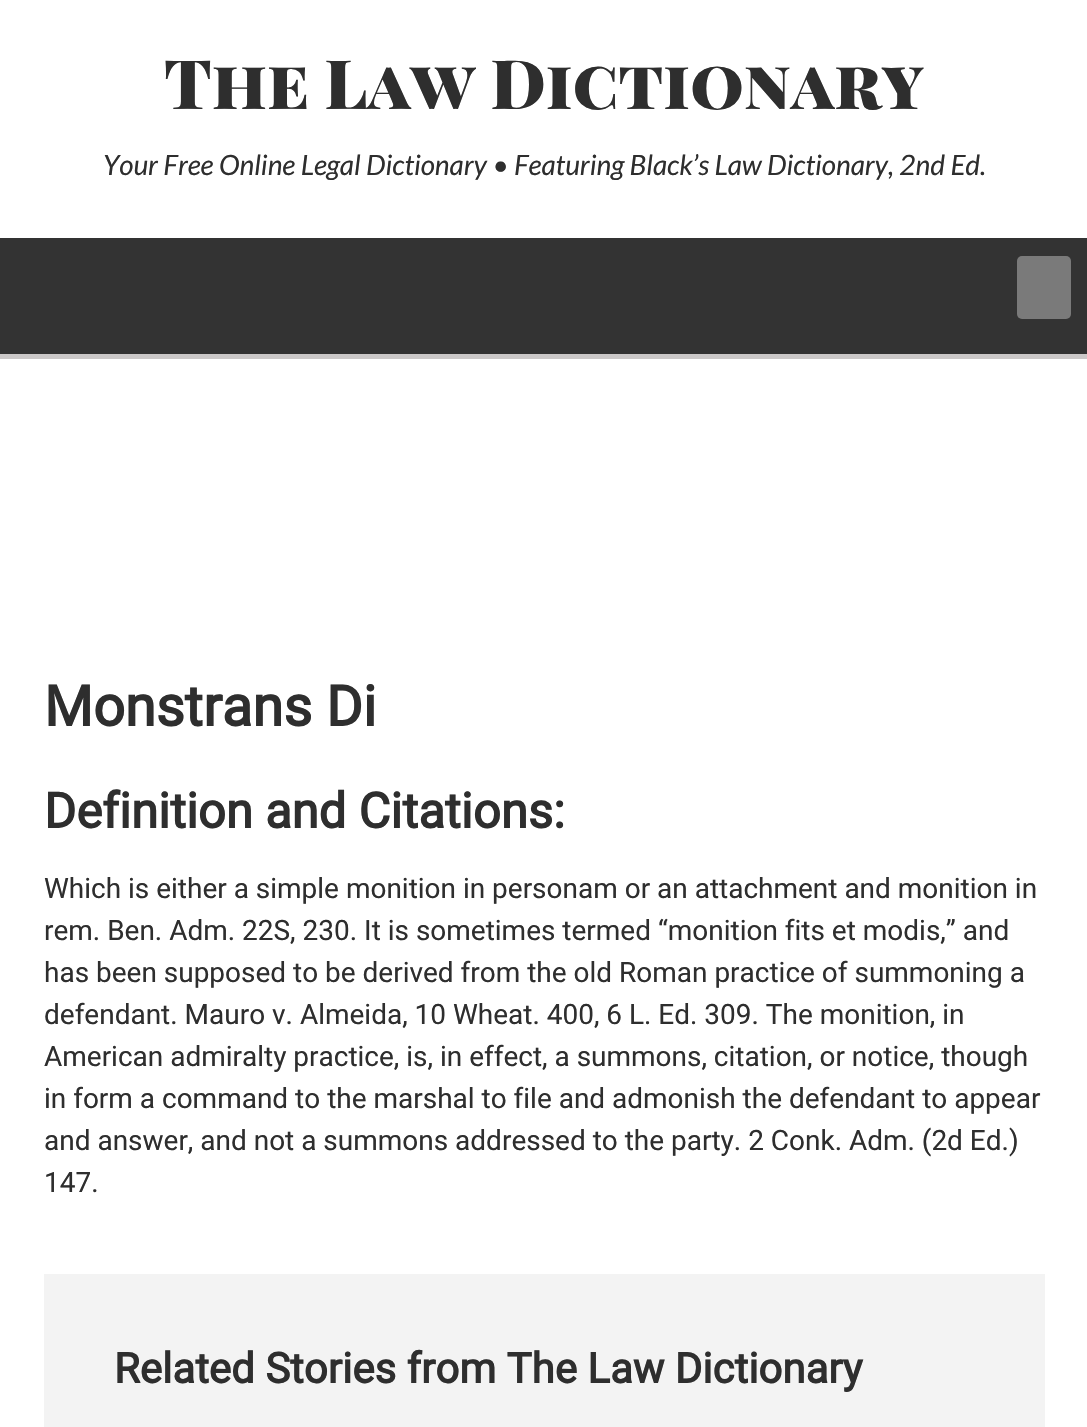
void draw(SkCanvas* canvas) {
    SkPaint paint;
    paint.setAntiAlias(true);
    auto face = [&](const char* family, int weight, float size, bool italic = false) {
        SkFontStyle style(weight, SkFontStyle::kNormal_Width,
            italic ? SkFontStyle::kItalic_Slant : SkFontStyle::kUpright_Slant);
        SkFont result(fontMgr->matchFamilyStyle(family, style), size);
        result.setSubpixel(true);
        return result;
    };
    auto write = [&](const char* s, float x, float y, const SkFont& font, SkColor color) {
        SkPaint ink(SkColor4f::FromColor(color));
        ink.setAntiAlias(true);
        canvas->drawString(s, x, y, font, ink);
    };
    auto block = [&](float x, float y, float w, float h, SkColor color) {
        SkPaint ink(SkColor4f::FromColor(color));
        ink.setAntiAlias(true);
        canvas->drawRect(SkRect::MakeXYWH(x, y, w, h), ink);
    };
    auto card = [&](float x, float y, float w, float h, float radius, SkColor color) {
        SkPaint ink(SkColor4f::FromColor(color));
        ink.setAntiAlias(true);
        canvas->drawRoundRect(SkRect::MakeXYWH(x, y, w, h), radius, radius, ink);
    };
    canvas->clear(SK_ColorWHITE);
    auto kFont1 = face("Playfair Display SC", 900, 68.25f);
    write("The Law Dictionary", 164, 109, kFont1, SkColorSetRGB(46, 46, 46));
    auto kFont2 = face("Lato", 400, 28, true);
    write("Your Free Online Legal Dictionary • Featuring Black’s Law Dictionary, 2nd Ed.", 103, 175, kFont2, SkColorSetRGB(46, 46, 46));
    block(0, 238, 1087, 116, SkColorSetRGB(51, 51, 51));
    block(0, 354, 1087, 5, SkColorSetRGB(203, 200, 200));
    card(1017, 256, 54, 63, 5, SkColorSetRGB(122, 122, 122));
    auto kFont3 = face("Roboto", 700, 56);
    write("Monstrans Di", 44, 726, kFont3, SkColorSetRGB(46, 46, 46));
    auto kFont4 = face("Roboto", 700, 49);
    write("Definition and Citations:", 44, 828, kFont4, SkColorSetRGB(46, 46, 46));
    auto kFont5 = face("Roboto", 400, 28);
    write("Which is either a simple monition in personam or an attachment and monition in", 44, 898, kFont5, SkColorSetRGB(46, 46, 46));
    write("rem. Ben. Adm. 22S, 230. It is sometimes termed “monition fits et modis,” and", 44, 940, kFont5, SkColorSetRGB(46, 46, 46));
    write("has been supposed to be derived from the old Roman practice of summoning a", 44, 982, kFont5, SkColorSetRGB(46, 46, 46));
    write("defendant. Mauro v. Almeida, 10 Wheat. 400, 6 L. Ed. 309. The monition, in", 44, 1024, kFont5, SkColorSetRGB(46, 46, 46));
    write("American admiralty practice, is, in effect, a summons, citation, or notice, though", 44, 1066, kFont5, SkColorSetRGB(46, 46, 46));
    write("in form a command to the marshal to file and admonish the defendant to appear", 44, 1108, kFont5, SkColorSetRGB(46, 46, 46));
    write("and answer, and not a summons addressed to the party. 2 Conk. Adm. (2d Ed.)", 44, 1150, kFont5, SkColorSetRGB(46, 46, 46));
    write("147.", 44, 1192, kFont5, SkColorSetRGB(46, 46, 46));
    block(44, 1274, 1001, 153, SkColorSetRGB(243, 243, 243));
    auto kFont6 = face("Roboto", 700, 42);
    write("Related Stories from The Law Dictionary", 114, 1383, kFont6, SkColorSetRGB(46, 46, 46));
}
